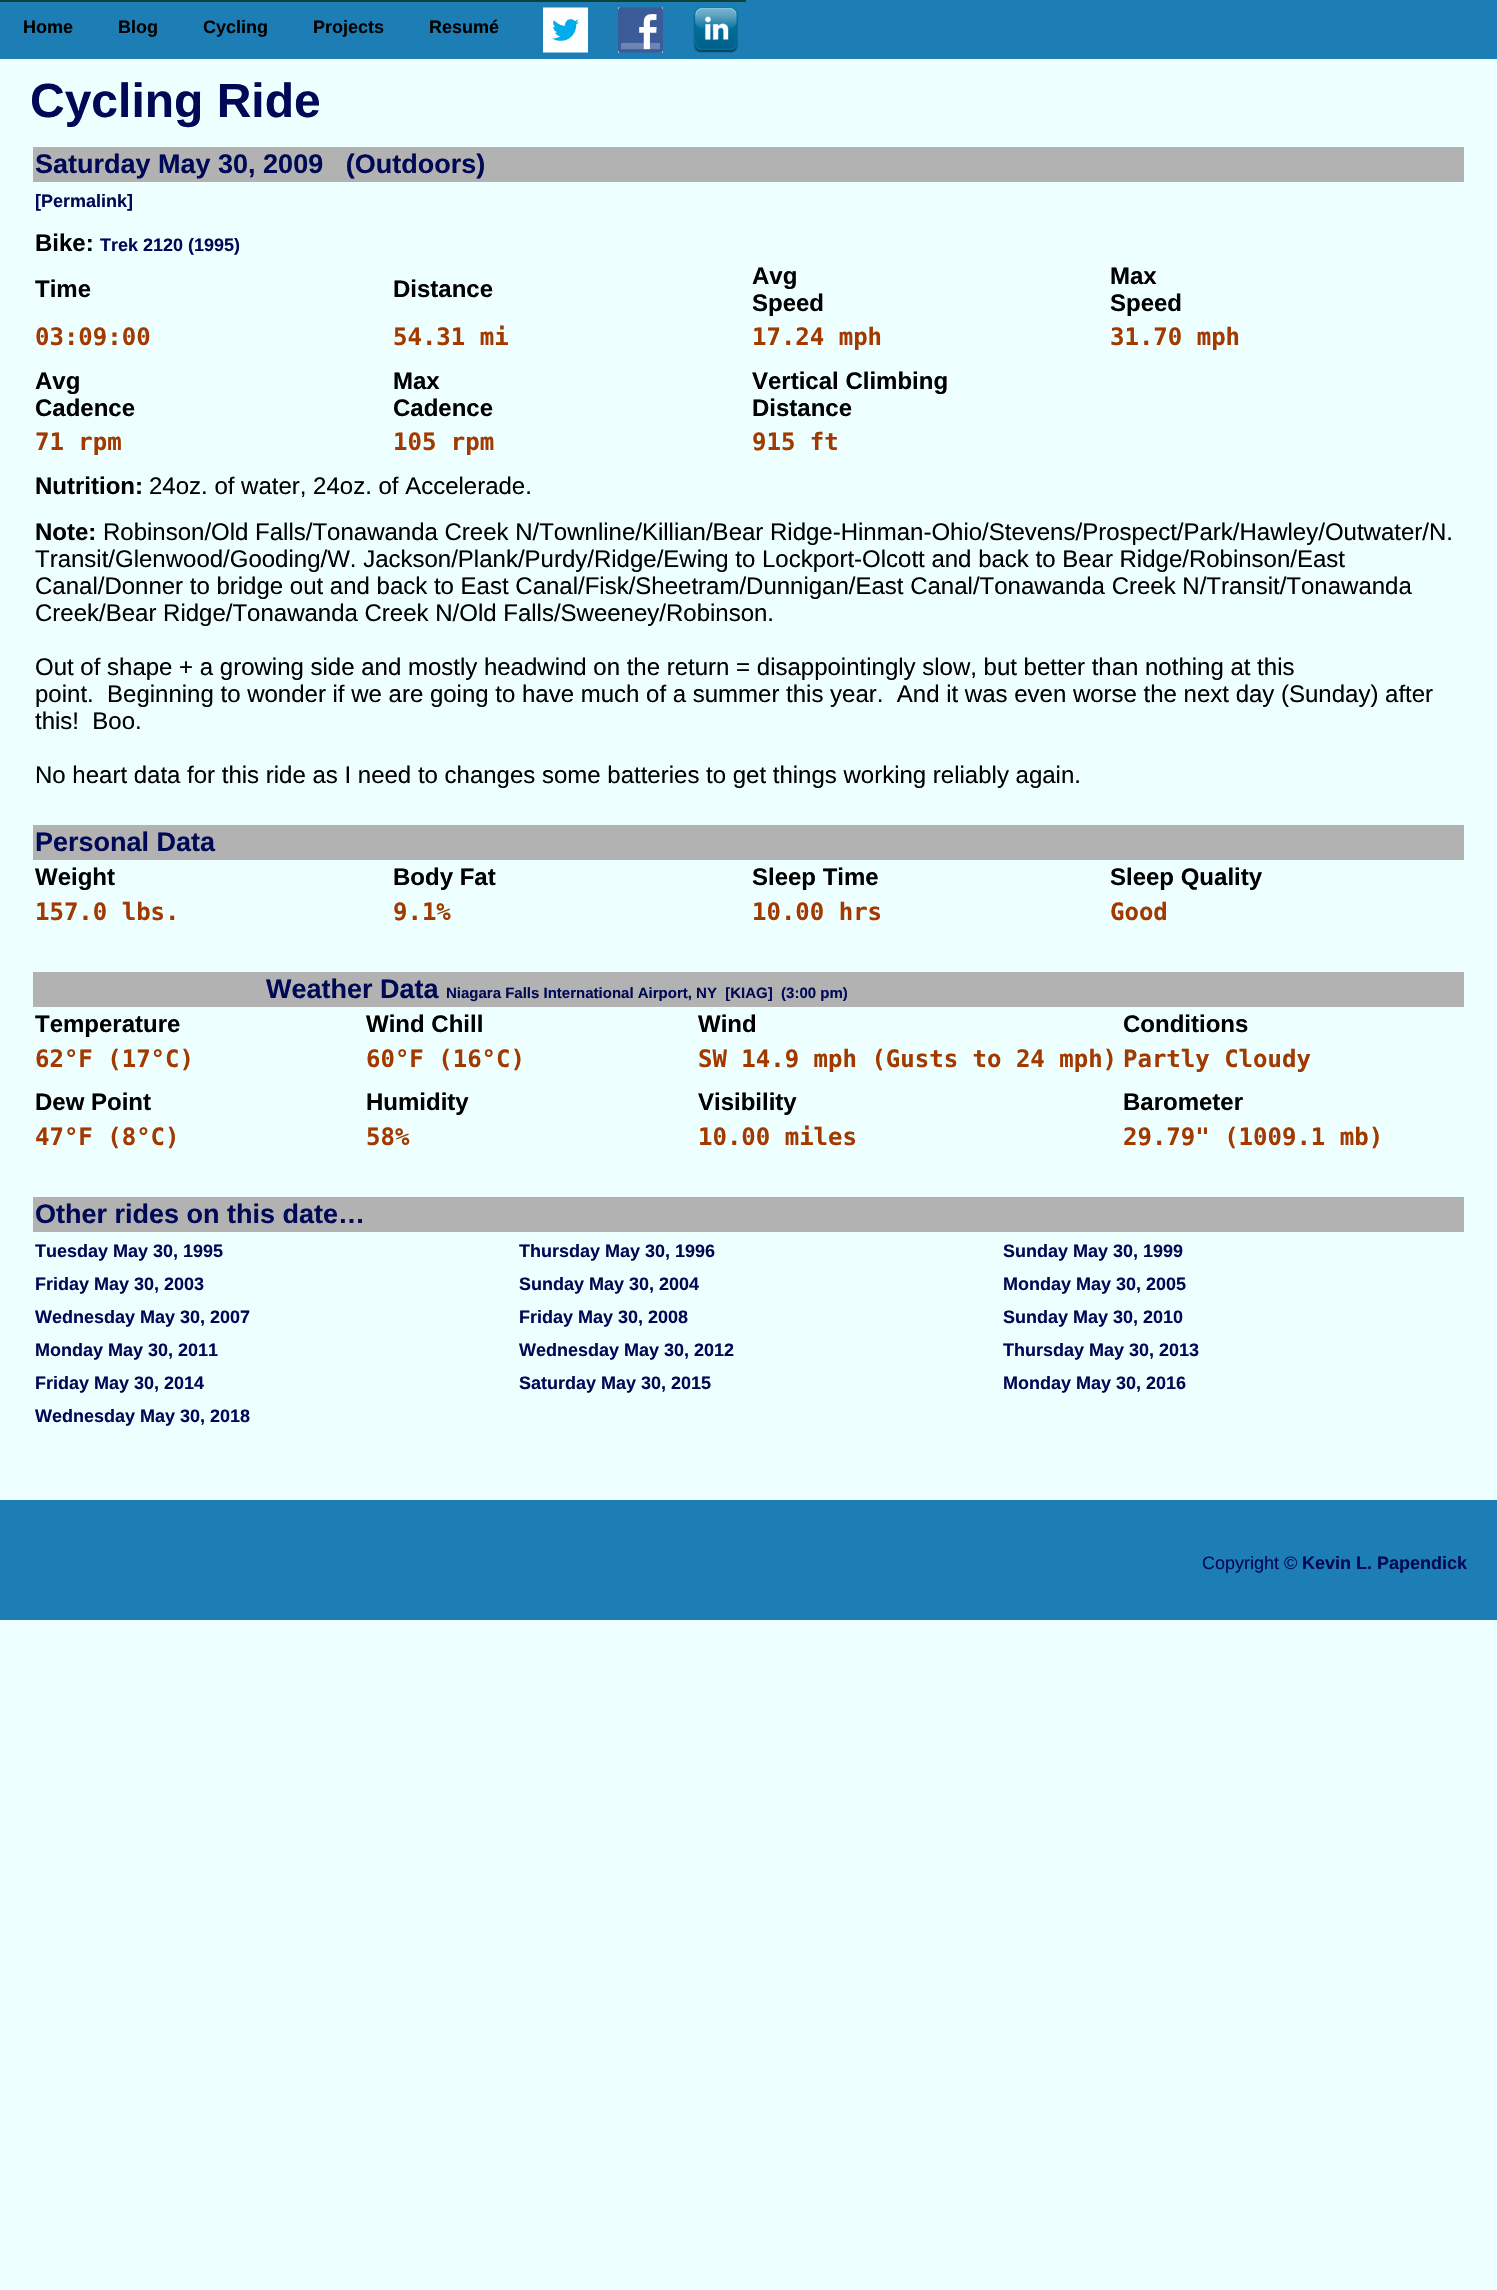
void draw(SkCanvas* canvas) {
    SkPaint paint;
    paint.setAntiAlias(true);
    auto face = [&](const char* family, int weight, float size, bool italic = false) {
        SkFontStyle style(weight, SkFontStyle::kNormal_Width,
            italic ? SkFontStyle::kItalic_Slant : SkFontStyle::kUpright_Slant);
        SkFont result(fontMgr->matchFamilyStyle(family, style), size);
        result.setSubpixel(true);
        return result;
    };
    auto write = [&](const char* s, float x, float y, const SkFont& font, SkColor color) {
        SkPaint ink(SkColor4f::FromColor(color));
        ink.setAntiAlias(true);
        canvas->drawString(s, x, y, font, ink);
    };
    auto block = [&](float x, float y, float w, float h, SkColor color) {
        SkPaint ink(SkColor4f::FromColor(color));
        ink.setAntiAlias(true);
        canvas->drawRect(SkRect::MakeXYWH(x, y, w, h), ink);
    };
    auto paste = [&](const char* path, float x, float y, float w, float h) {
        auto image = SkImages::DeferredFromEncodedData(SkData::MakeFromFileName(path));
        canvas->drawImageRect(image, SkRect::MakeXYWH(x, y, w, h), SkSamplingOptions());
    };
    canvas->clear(SkColorSetRGB(238, 255, 255));
    block(0, 0, 1497, 59, SkColorSetRGB(28, 126, 180));
    block(0, 0, 746, 2, SkColorSetRGB(16, 67, 54));
    auto kFont1 = face("Liberation Sans", 700, 18);
    write("Home", 23, 33, kFont1, SK_ColorBLACK);
    write("Blog", 118, 33, kFont1, SK_ColorBLACK);
    write("Cycling", 203, 33, kFont1, SK_ColorBLACK);
    write("Projects", 313, 33, kFont1, SK_ColorBLACK);
    write("Resumé", 429, 33, kFont1, SK_ColorBLACK);
    paste("pic1.png", 543, 7, 45, 46);
    paste("pic2.png", 618, 7, 45, 46);
    paste("pic3.png", 693, 7, 45, 46);
    auto kFont2 = face("Liberation Sans", 700, 48);
    write("Cycling Ride", 30, 117, kFont2, SkColorSetRGB(0, 9, 85));
    block(33, 147, 1431, 35, SkColorSetRGB(178, 178, 178));
    auto kFont3 = face("Liberation Sans", 700, 27);
    write("Saturday May 30, 2009   (Outdoors)", 35, 173, kFont3, SkColorSetRGB(0, 9, 85));
    write("[Permalink]", 35, 207, kFont1, SkColorSetRGB(0, 9, 85));
    auto kFont4 = face("Liberation Sans", 700, 24);
    write("Bike:", 35, 251, kFont4, SK_ColorBLACK);
    write("Trek 2120 (1995)", 100, 251, kFont1, SkColorSetRGB(0, 9, 85));
    write("Time", 35, 297, kFont4, SK_ColorBLACK);
    write("Distance", 393, 297, kFont4, SK_ColorBLACK);
    write("Avg", 752, 284, kFont4, SK_ColorBLACK);
    write("Speed", 752, 311, kFont4, SK_ColorBLACK);
    write("Max", 1110, 284, kFont4, SK_ColorBLACK);
    write("Speed", 1110, 311, kFont4, SK_ColorBLACK);
    auto kFont5 = face("DejaVu Sans Mono", 700, 24);
    write("03:09:00", 35, 345, kFont5, SkColorSetRGB(162, 58, 0));
    write("54.31 mi", 393, 345, kFont5, SkColorSetRGB(162, 58, 0));
    write("17.24 mph", 752, 345, kFont5, SkColorSetRGB(162, 58, 0));
    write("31.70 mph", 1110, 345, kFont5, SkColorSetRGB(162, 58, 0));
    write("Avg", 35, 389, kFont4, SK_ColorBLACK);
    write("Cadence", 35, 416, kFont4, SK_ColorBLACK);
    write("Max", 393, 389, kFont4, SK_ColorBLACK);
    write("Cadence", 393, 416, kFont4, SK_ColorBLACK);
    write("Vertical Climbing", 752, 389, kFont4, SK_ColorBLACK);
    write("Distance", 752, 416, kFont4, SK_ColorBLACK);
    write("71 rpm", 35, 450, kFont5, SkColorSetRGB(162, 58, 0));
    write("105 rpm", 393, 450, kFont5, SkColorSetRGB(162, 58, 0));
    write("915 ft", 752, 450, kFont5, SkColorSetRGB(162, 58, 0));
    write("Nutrition:", 35, 494, kFont4, SK_ColorBLACK);
    auto kFont6 = face("Liberation Sans", 400, 24);
    write("24oz. of water, 24oz. of Accelerade.", 149, 494, kFont6, SK_ColorBLACK);
    write("Note:", 35, 540, kFont4, SK_ColorBLACK);
    write("Robinson/Old Falls/Tonawanda Creek N/Townline/Killian/Bear Ridge-Hinman-Ohio/Stevens/Prospect/Park/Hawley/Outwater/N.", 103, 540, kFont6, SK_ColorBLACK);
    write("Transit/Glenwood/Gooding/W. Jackson/Plank/Purdy/Ridge/Ewing to Lockport-Olcott and back to Bear Ridge/Robinson/East", 35, 567, kFont6, SK_ColorBLACK);
    write("Canal/Donner to bridge out and back to East Canal/Fisk/Sheetram/Dunnigan/East Canal/Tonawanda Creek N/Transit/Tonawanda", 35, 594, kFont6, SK_ColorBLACK);
    write("Creek/Bear Ridge/Tonawanda Creek N/Old Falls/Sweeney/Robinson.", 35, 621, kFont6, SK_ColorBLACK);
    write("Out of shape + a growing side and mostly headwind on the return = disappointingly slow, but better than nothing at this", 35, 675, kFont6, SK_ColorBLACK);
    write("point.  Beginning to wonder if we are going to have much of a summer this year.  And it was even worse the next day (Sunday) after", 35, 702, kFont6, SK_ColorBLACK);
    write("this!  Boo.", 35, 729, kFont6, SK_ColorBLACK);
    write("No heart data for this ride as I need to changes some batteries to get things working reliably again.", 35, 783, kFont6, SK_ColorBLACK);
    block(33, 825, 1431, 35, SkColorSetRGB(178, 178, 178));
    write("Personal Data", 35, 851, kFont3, SkColorSetRGB(0, 9, 85));
    write("Weight", 35, 885, kFont4, SK_ColorBLACK);
    write("Body Fat", 393, 885, kFont4, SK_ColorBLACK);
    write("Sleep Time", 752, 885, kFont4, SK_ColorBLACK);
    write("Sleep Quality", 1110, 885, kFont4, SK_ColorBLACK);
    write("157.0 lbs.", 35, 920, kFont5, SkColorSetRGB(162, 58, 0));
    write("9.1%", 393, 920, kFont5, SkColorSetRGB(162, 58, 0));
    write("10.00 hrs", 752, 920, kFont5, SkColorSetRGB(162, 58, 0));
    write("Good", 1110, 920, kFont5, SkColorSetRGB(162, 58, 0));
    block(33, 972, 1431, 35, SkColorSetRGB(178, 178, 178));
    write("Weather Data", 266, 998, kFont3, SkColorSetRGB(0, 9, 85));
    auto kFont7 = face("Liberation Sans", 700, 15);
    write("Niagara Falls International Airport, NY  [KIAG]  (3:00 pm)", 446, 998, kFont7, SkColorSetRGB(0, 9, 85));
    write("Temperature", 35, 1032, kFont4, SK_ColorBLACK);
    write("Wind Chill", 366, 1032, kFont4, SK_ColorBLACK);
    write("Wind", 698, 1032, kFont4, SK_ColorBLACK);
    write("Conditions", 1123, 1032, kFont4, SK_ColorBLACK);
    write("62°F (17°C)", 35, 1067, kFont5, SkColorSetRGB(162, 58, 0));
    write("60°F (16°C)", 366, 1067, kFont5, SkColorSetRGB(162, 58, 0));
    write("SW 14.9 mph (Gusts to 24 mph)", 698, 1067, kFont5, SkColorSetRGB(162, 58, 0));
    write("Partly Cloudy", 1123, 1067, kFont5, SkColorSetRGB(162, 58, 0));
    write("Dew Point", 35, 1110, kFont4, SK_ColorBLACK);
    write("Humidity", 366, 1110, kFont4, SK_ColorBLACK);
    write("Visibility", 698, 1110, kFont4, SK_ColorBLACK);
    write("Barometer", 1123, 1110, kFont4, SK_ColorBLACK);
    write("47°F (8°C)", 35, 1145, kFont5, SkColorSetRGB(162, 58, 0));
    write("58%", 366, 1145, kFont5, SkColorSetRGB(162, 58, 0));
    write("10.00 miles", 698, 1145, kFont5, SkColorSetRGB(162, 58, 0));
    write("29.79\" (1009.1 mb)", 1123, 1145, kFont5, SkColorSetRGB(162, 58, 0));
    block(33, 1197, 1431, 35, SkColorSetRGB(178, 178, 178));
    write("Other rides on this date…", 35, 1223, kFont3, SkColorSetRGB(0, 9, 85));
    write("Tuesday May 30, 1995", 35, 1257, kFont1, SkColorSetRGB(0, 9, 85));
    write("Thursday May 30, 1996", 519, 1257, kFont1, SkColorSetRGB(0, 9, 85));
    write("Sunday May 30, 1999", 1003, 1257, kFont1, SkColorSetRGB(0, 9, 85));
    write("Friday May 30, 2003", 35, 1290, kFont1, SkColorSetRGB(0, 9, 85));
    write("Sunday May 30, 2004", 519, 1290, kFont1, SkColorSetRGB(0, 9, 85));
    write("Monday May 30, 2005", 1003, 1290, kFont1, SkColorSetRGB(0, 9, 85));
    write("Wednesday May 30, 2007", 35, 1323, kFont1, SkColorSetRGB(0, 9, 85));
    write("Friday May 30, 2008", 519, 1323, kFont1, SkColorSetRGB(0, 9, 85));
    write("Sunday May 30, 2010", 1003, 1323, kFont1, SkColorSetRGB(0, 9, 85));
    write("Monday May 30, 2011", 35, 1356, kFont1, SkColorSetRGB(0, 9, 85));
    write("Wednesday May 30, 2012", 519, 1356, kFont1, SkColorSetRGB(0, 9, 85));
    write("Thursday May 30, 2013", 1003, 1356, kFont1, SkColorSetRGB(0, 9, 85));
    write("Friday May 30, 2014", 35, 1389, kFont1, SkColorSetRGB(0, 9, 85));
    write("Saturday May 30, 2015", 519, 1389, kFont1, SkColorSetRGB(0, 9, 85));
    write("Monday May 30, 2016", 1003, 1389, kFont1, SkColorSetRGB(0, 9, 85));
    write("Wednesday May 30, 2018", 35, 1422, kFont1, SkColorSetRGB(0, 9, 85));
    block(0, 1500, 1497, 120, SkColorSetRGB(28, 126, 180));
    auto kFont8 = face("Liberation Sans", 400, 18);
    write("Copyright ©", 1202, 1569, kFont8, SkColorSetRGB(0, 9, 85));
    write("Kevin L. Papendick", 1302, 1569, kFont1, SkColorSetRGB(0, 9, 85));
}
